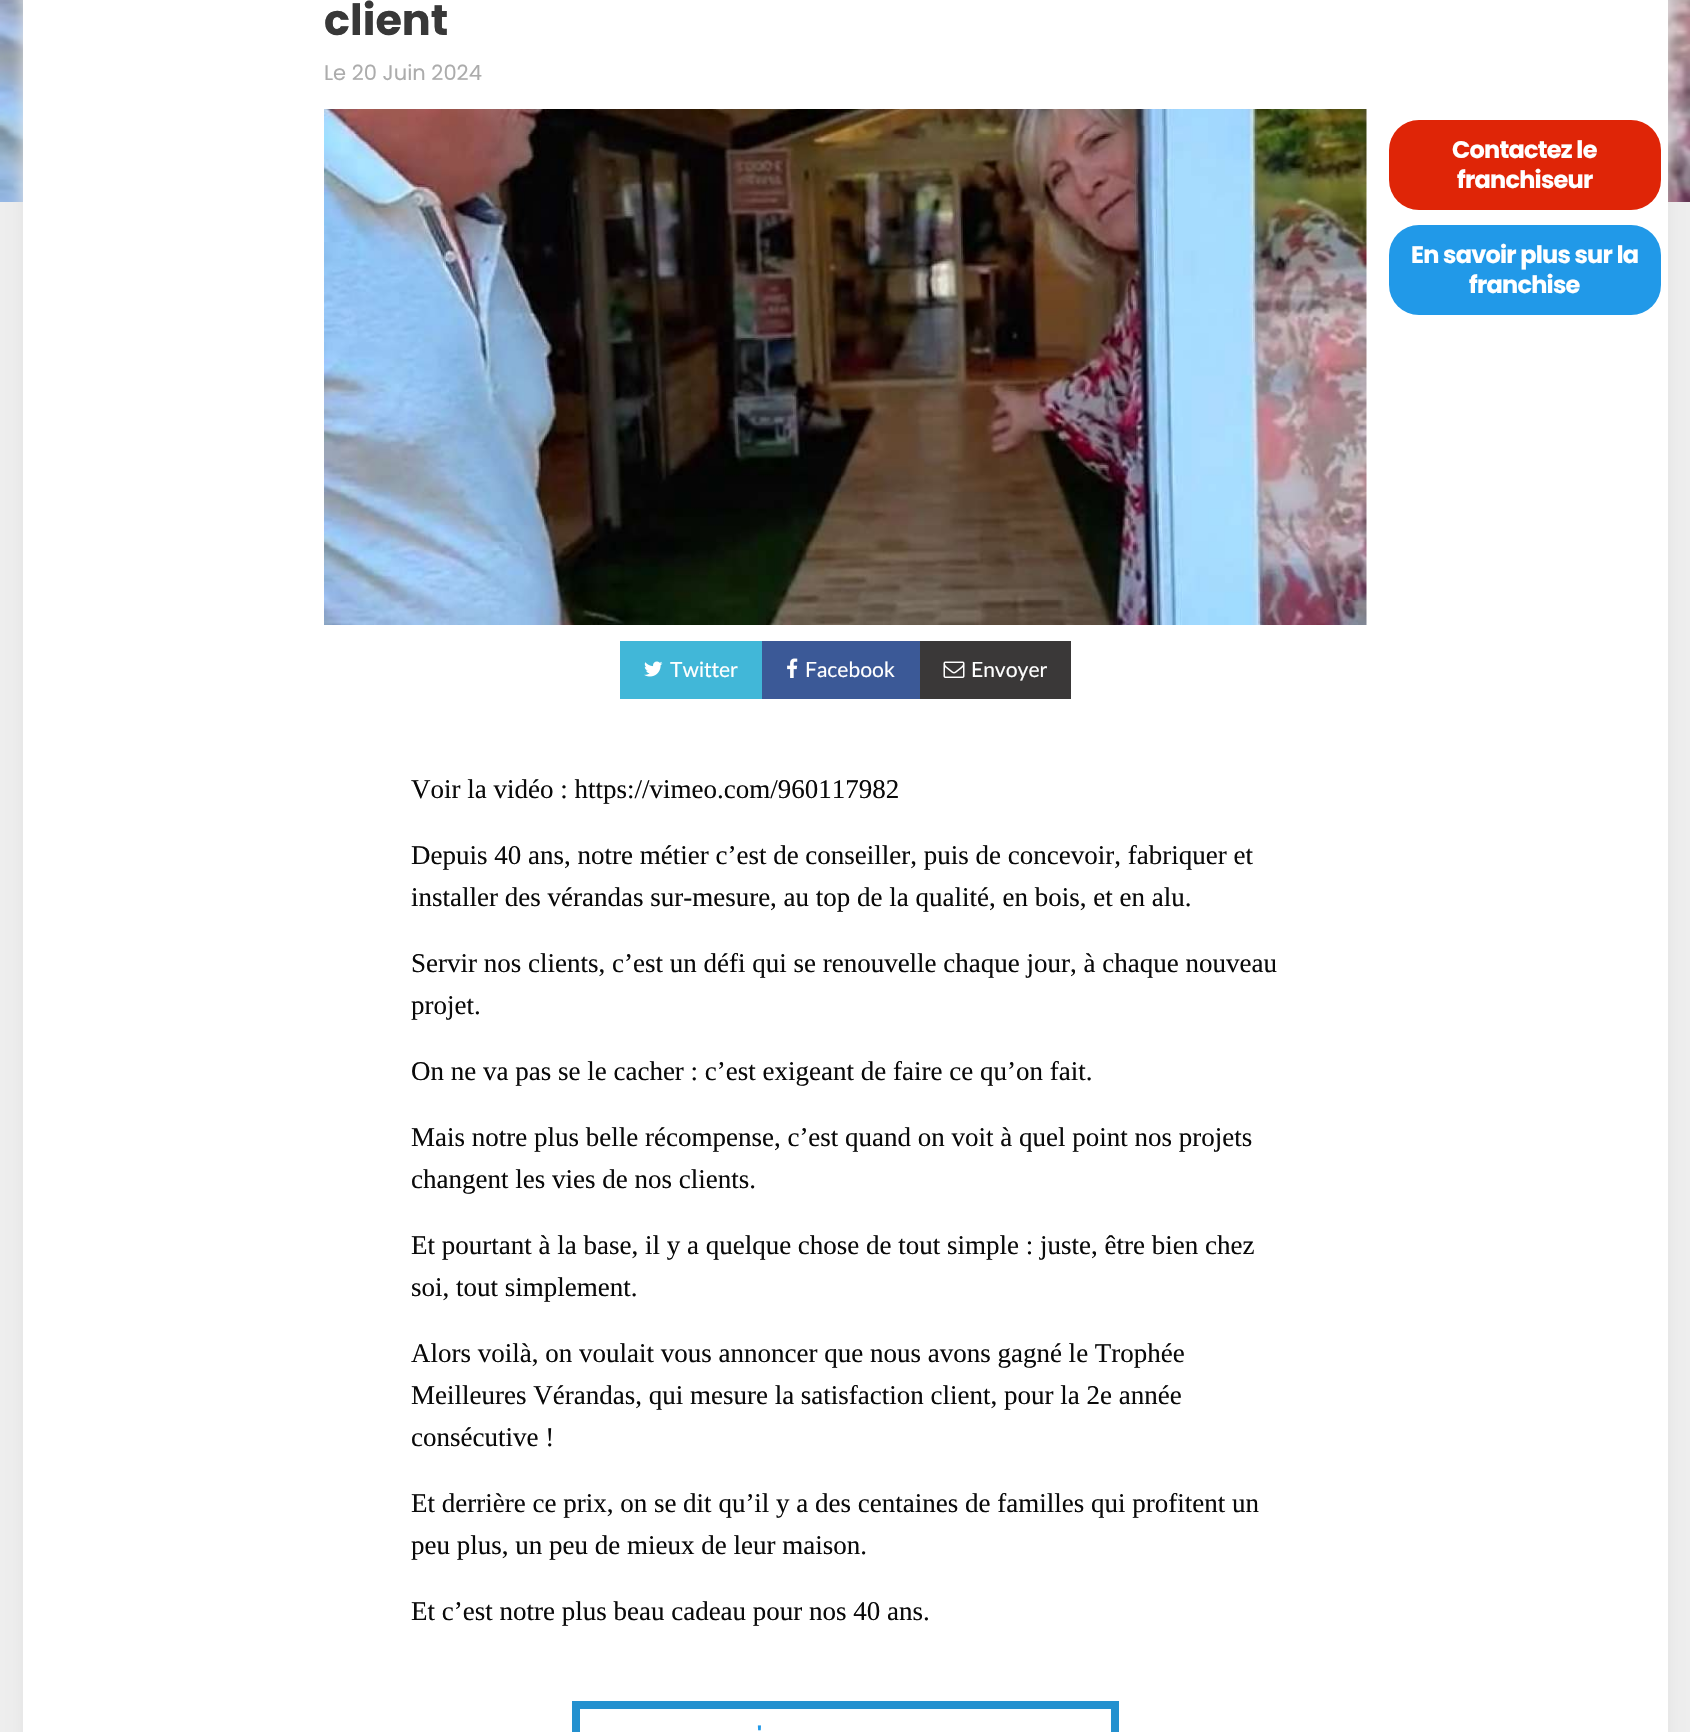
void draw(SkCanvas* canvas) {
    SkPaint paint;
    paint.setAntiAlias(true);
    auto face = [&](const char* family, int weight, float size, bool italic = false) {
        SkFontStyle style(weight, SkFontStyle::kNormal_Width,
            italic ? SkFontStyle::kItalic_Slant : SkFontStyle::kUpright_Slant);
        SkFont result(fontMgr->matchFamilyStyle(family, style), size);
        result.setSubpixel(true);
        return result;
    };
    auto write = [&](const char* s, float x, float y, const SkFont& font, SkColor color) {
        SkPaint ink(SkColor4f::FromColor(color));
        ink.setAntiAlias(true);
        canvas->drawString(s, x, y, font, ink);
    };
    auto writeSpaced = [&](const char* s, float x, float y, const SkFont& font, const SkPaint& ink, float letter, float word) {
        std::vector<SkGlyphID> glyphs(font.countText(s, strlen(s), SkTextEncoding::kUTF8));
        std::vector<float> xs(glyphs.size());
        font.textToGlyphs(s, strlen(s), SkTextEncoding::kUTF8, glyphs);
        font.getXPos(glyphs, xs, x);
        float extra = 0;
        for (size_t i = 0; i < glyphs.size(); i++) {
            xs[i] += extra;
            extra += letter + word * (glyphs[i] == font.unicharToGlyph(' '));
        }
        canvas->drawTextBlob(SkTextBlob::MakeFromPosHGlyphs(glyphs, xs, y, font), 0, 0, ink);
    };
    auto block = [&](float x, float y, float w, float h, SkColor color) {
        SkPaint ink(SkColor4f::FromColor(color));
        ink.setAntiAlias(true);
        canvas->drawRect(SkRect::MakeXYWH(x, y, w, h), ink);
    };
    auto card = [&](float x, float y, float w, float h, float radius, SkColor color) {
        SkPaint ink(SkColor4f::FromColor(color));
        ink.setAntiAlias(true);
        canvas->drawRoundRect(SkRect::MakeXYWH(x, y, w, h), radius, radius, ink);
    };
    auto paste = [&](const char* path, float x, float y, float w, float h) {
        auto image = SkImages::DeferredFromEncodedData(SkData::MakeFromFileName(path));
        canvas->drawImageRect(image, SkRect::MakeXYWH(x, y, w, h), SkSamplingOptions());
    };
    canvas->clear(SkColorSetRGB(238, 238, 238));
    paste("pic1.png", 0, 0, 1690, 202);
    paint.setColor(SkColorSetRGB(226, 226, 226));
    paint.setMaskFilter(SkMaskFilter::MakeBlur(kNormal_SkBlurStyle, 7.5f));
    canvas->drawRect(SkRect::MakeXYWH(23, -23, 1645, 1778), paint);
    paint.setMaskFilter(nullptr);
    block(23, 0, 1645, 1732, SK_ColorWHITE);
    auto kFont1 = face("Poppins", 700, 43);
    write("client", 324, 35, kFont1, SkColorSetRGB(56, 56, 56));
    auto kFont2 = face("Poppins", 400, 21);
    write("Le 20 Juin 2024", 324, 80, kFont2, SkColorSetRGB(172, 172, 172));
    paste("pic2.png", 324, 109, 1043, 516);
    block(620, 641, 142, 58, SkColorSetRGB(65, 183, 216));
    paste("pic3.png", 644, 661, 19, 16);
    auto kFont3 = face("Lato", 400, 21);
    write("Twitter", 670, 677, kFont3, SK_ColorWHITE);
    block(762, 641, 158, 58, SkColorSetRGB(59, 89, 151));
    paste("pic4.png", 787, 658, 11, 20);
    write("Facebook", 805, 677, kFont3, SK_ColorWHITE);
    block(920, 641, 151, 58, SkColorSetRGB(58, 56, 56));
    paste("pic5.png", 943, 661, 22, 17);
    write("Envoyer", 971, 677, kFont3, SK_ColorWHITE);
    auto kFont4 = face("Liberation Serif", 400, 27);
    write("Voir la vidéo : https://vimeo.com/960117982", 411, 798, kFont4, SkColorSetRGB(10, 10, 10));
    write("Depuis 40 ans, notre métier c’est de conseiller, puis de concevoir, fabriquer et", 411, 864, kFont4, SkColorSetRGB(10, 10, 10));
    write("installer des vérandas sur-mesure, au top de la qualité, en bois, et en alu.", 411, 906, kFont4, SkColorSetRGB(10, 10, 10));
    write("Servir nos clients, c’est un défi qui se renouvelle chaque jour, à chaque nouveau", 411, 972, kFont4, SkColorSetRGB(10, 10, 10));
    write("projet.", 411, 1014, kFont4, SkColorSetRGB(10, 10, 10));
    write("On ne va pas se le cacher : c’est exigeant de faire ce qu’on fait.", 411, 1080, kFont4, SkColorSetRGB(10, 10, 10));
    write("Mais notre plus belle récompense, c’est quand on voit à quel point nos projets", 411, 1146, kFont4, SkColorSetRGB(10, 10, 10));
    write("changent les vies de nos clients.", 411, 1188, kFont4, SkColorSetRGB(10, 10, 10));
    write("Et pourtant à la base, il y a quelque chose de tout simple : juste, être bien chez", 411, 1254, kFont4, SkColorSetRGB(10, 10, 10));
    write("soi, tout simplement.", 411, 1296, kFont4, SkColorSetRGB(10, 10, 10));
    write("Alors voilà, on voulait vous annoncer que nous avons gagné le Trophée", 411, 1362, kFont4, SkColorSetRGB(10, 10, 10));
    write("Meilleures Vérandas, qui mesure la satisfaction client, pour la 2e année", 411, 1404, kFont4, SkColorSetRGB(10, 10, 10));
    write("consécutive !", 411, 1446, kFont4, SkColorSetRGB(10, 10, 10));
    write("Et derrière ce prix, on se dit qu’il y a des centaines de familles qui profitent un", 411, 1512, kFont4, SkColorSetRGB(10, 10, 10));
    write("peu plus, un peu de mieux de leur maison.", 411, 1554, kFont4, SkColorSetRGB(10, 10, 10));
    write("Et c’est notre plus beau cadeau pour nos 40 ans.", 411, 1620, kFont4, SkColorSetRGB(10, 10, 10));
    paint.setStyle(SkPaint::kStroke_Style);
    paint.setStrokeWidth(8);
    paint.setColor(SkColorSetRGB(36, 145, 207));
    canvas->drawRect(SkRect::MakeXYWH(576, 1705, 539, 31), paint);
    auto kFont5 = face("Poppins", 700, 22);
    write("'", 757, 1743, kFont5, SkColorSetRGB(33, 153, 232));
    card(1389, 120, 272, 90, 30, SkColorSetRGB(223, 37, 7));
    auto kFont6 = face("Poppins", 700, 24);
    paint.setStyle(SkPaint::kFill_Style);
    paint.setColor(SK_ColorWHITE);
    writeSpaced("Contactez le", 1452, 158, kFont6, paint, -0.75f, 0);
    writeSpaced("franchiseur", 1457, 188, kFont6, paint, -0.75f, 0);
    card(1389, 225, 272, 90, 30, SkColorSetRGB(33, 153, 232));
    writeSpaced("En savoir plus sur la", 1411, 263, kFont6, paint, -0.75f, 0);
    writeSpaced("franchise", 1469, 293, kFont6, paint, -0.75f, 0);
}
